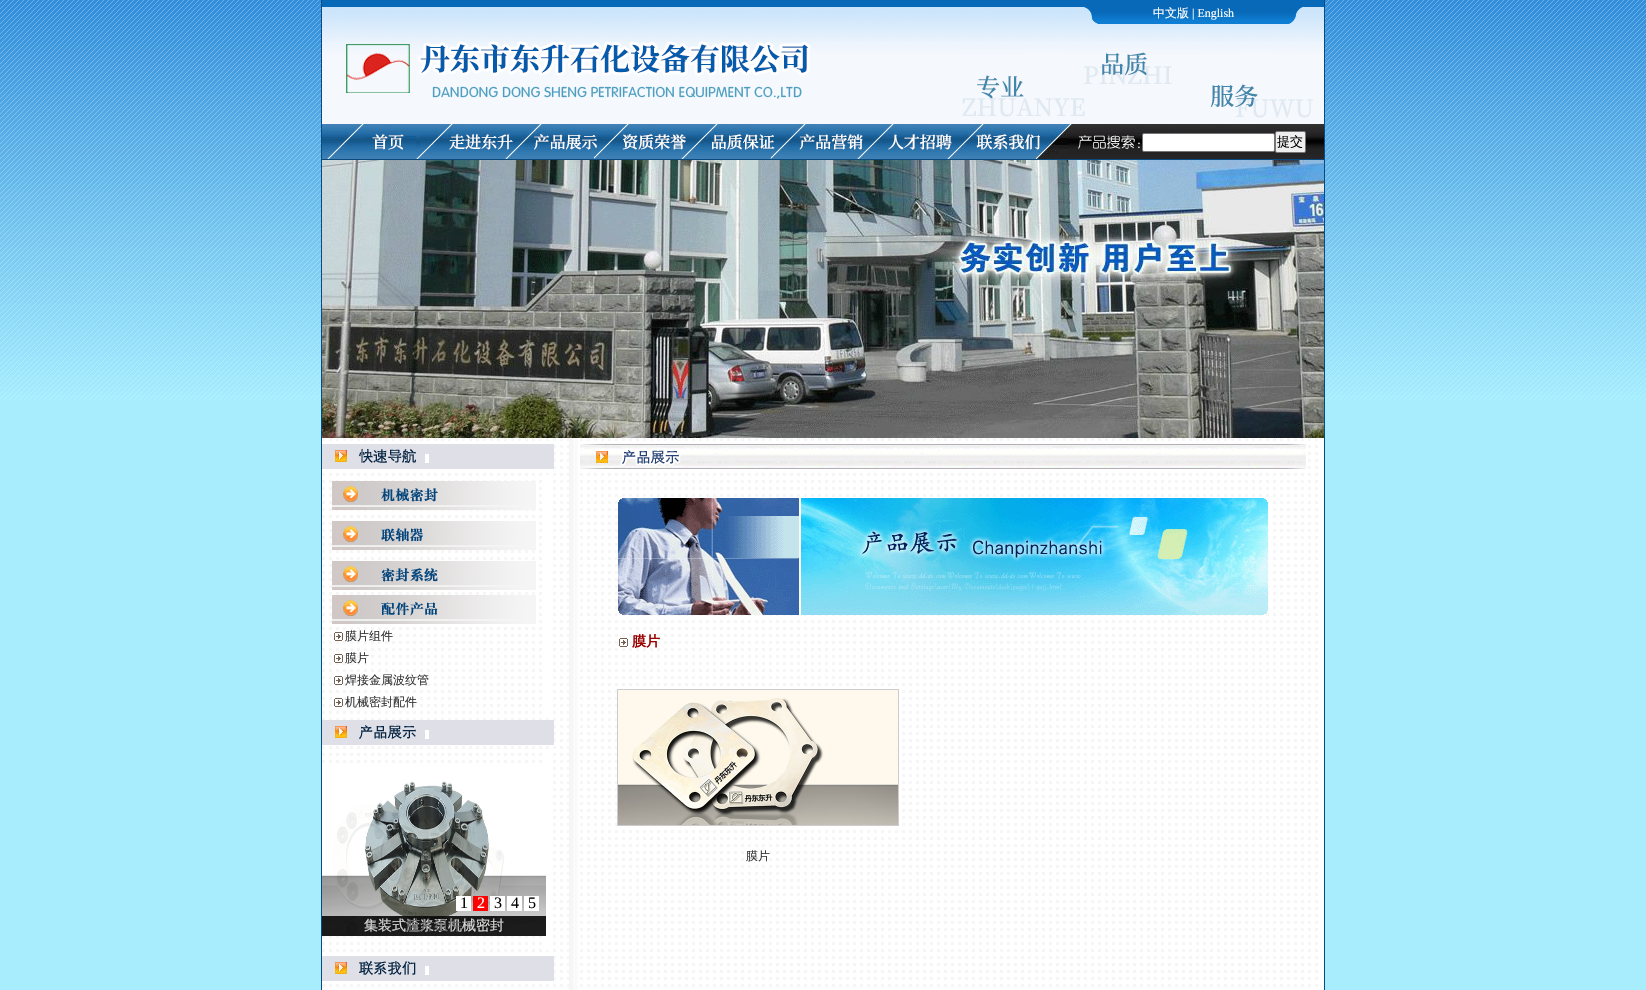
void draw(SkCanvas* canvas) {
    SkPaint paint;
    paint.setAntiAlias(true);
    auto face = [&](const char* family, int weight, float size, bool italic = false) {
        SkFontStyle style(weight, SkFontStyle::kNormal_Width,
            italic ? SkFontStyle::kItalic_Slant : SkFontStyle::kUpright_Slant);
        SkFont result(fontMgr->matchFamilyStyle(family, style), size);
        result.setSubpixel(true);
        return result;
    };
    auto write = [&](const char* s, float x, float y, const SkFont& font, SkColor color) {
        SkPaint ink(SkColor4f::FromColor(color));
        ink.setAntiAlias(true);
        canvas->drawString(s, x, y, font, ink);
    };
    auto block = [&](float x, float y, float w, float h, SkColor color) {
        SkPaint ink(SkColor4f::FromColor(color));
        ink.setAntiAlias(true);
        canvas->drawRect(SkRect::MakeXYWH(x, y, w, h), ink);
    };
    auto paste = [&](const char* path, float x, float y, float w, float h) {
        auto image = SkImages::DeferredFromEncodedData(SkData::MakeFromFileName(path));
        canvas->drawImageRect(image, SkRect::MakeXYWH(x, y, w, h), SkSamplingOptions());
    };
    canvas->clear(SK_ColorWHITE);
    paste("pic1.png", 0, 0, 1646, 990);
    block(321, 0, 1004, 990, SkColorSetRGB(9, 74, 128));
    block(578, 438, 746, 552, SK_ColorWHITE);
    paste("pic2.png", 322, 0, 1002, 26);
    auto kFont1 = face("WenQuanYi Zen Hei", 500, 12);
    write("中文版", 1153, 17, kFont1, SK_ColorWHITE);
    auto kFont2 = face("Liberation Serif", 400, 12);
    write("| English", 1192, 17, kFont2, SK_ColorWHITE);
    paste("pic3.png", 322, 26, 1002, 98);
    paste("pic4.png", 346, 41, 465, 58);
    paste("pic5.png", 962, 52, 351, 66);
    paste("pic6.png", 322, 124, 746, 36);
    paste("pic7.png", 1068, 124, 256, 36);
    paint.setColor(SK_ColorWHITE);
    canvas->drawRoundRect(SkRect::MakeXYWH(1142.5f, 133.5f, 132, 18), 1.5f, 1.5f, paint);
    paint.setStyle(SkPaint::kStroke_Style);
    paint.setStrokeWidth(1);
    paint.setColor(SkColorSetRGB(118, 118, 118));
    canvas->drawRoundRect(SkRect::MakeXYWH(1142.5f, 133.5f, 132, 18), 1.5f, 1.5f, paint);
    paint.setStyle(SkPaint::kFill_Style);
    paint.setColor(SkColorSetRGB(239, 239, 239));
    canvas->drawRoundRect(SkRect::MakeXYWH(1275.5f, 131.5f, 30, 21), 1.5f, 1.5f, paint);
    paint.setStyle(SkPaint::kStroke_Style);
    paint.setColor(SkColorSetRGB(118, 118, 118));
    canvas->drawRoundRect(SkRect::MakeXYWH(1275.5f, 131.5f, 30, 21), 1.5f, 1.5f, paint);
    auto kFont3 = face("WenQuanYi Zen Hei", 500, 13);
    write("提交", 1277, 146, kFont3, SK_ColorBLACK);
    paste("pic8.png", 322, 160, 1002, 278);
    paste("pic9.png", 569, 438, 9, 552);
    paste("pic10.png", 322, 438, 247, 552);
    paste("pic11.png", 322, 444, 232, 25);
    paste("pic12.png", 332, 481, 204, 29);
    paste("pic13.png", 332, 521, 204, 29);
    paste("pic14.png", 332, 561, 204, 29);
    paste("pic15.png", 332, 595, 204, 29);
    paste("pic16.png", 334, 632, 9, 9);
    write("膜片组件", 345, 640, kFont1, SkColorSetRGB(51, 51, 51));
    paste("pic16.png", 334, 654, 9, 9);
    write("膜片", 345, 662, kFont1, SkColorSetRGB(51, 51, 51));
    paste("pic16.png", 334, 676, 9, 9);
    write("焊接金属波纹管", 345, 684, kFont1, SkColorSetRGB(51, 51, 51));
    paste("pic16.png", 334, 698, 9, 9);
    write("机械密封配件", 345, 706, kFont1, SkColorSetRGB(51, 51, 51));
    block(546, 475, 3, 239, SK_ColorWHITE);
    paste("pic17.png", 322, 720, 232, 25);
    paste("pic18.png", 322, 767, 224, 169);
    block(322, 916, 224, 20, SkColorSetARGB(237, 0, 0, 0));
    auto kFont4 = face("WenQuanYi Zen Hei", 500, 14);
    write("集装式渣浆泵机械密封", 364, 930, kFont4, SkColorSetRGB(239, 239, 239));
    paste("pic19.png", 322, 782, 224, 154);
    block(456, 896, 15, 15, SK_ColorWHITE);
    auto kFont5 = face("Liberation Serif", 400, 16);
    write("1", 460, 908, kFont5, SK_ColorBLACK);
    block(473, 896, 15, 15, SkColorSetRGB(255, 0, 0));
    write("2", 477, 908, kFont5, SK_ColorWHITE);
    block(490, 896, 15, 15, SK_ColorWHITE);
    write("3", 494, 908, kFont5, SK_ColorBLACK);
    block(507, 896, 15, 15, SK_ColorWHITE);
    write("4", 511, 908, kFont5, SK_ColorBLACK);
    block(524, 896, 15, 15, SK_ColorWHITE);
    write("5", 528, 908, kFont5, SK_ColorBLACK);
    block(364, 918, 140, 14, SkColorSetARGB(18, 0, 0, 0));
    write("膜片组件", 406, 930, kFont4, SkColorSetRGB(102, 102, 102));
    block(546, 751, 3, 199, SK_ColorWHITE);
    paste("pic20.png", 322, 956, 232, 25);
    paste("pic21.png", 580, 438, 738, 549);
    paste("pic22.png", 580, 444, 726, 25);
    paste("pic23.png", 618, 498, 650, 118);
    paste("pic16.png", 619, 638, 9, 9);
    auto kFont6 = face("WenQuanYi Zen Hei", 700, 14);
    write("膜片", 632, 646, kFont6, SkColorSetRGB(153, 0, 0));
    block(617, 689, 282, 137, SkColorSetRGB(204, 204, 204));
    paste("pic24.png", 618, 690, 280, 135);
    write("膜片", 746, 860, kFont1, SkColorSetRGB(51, 51, 51));
}
